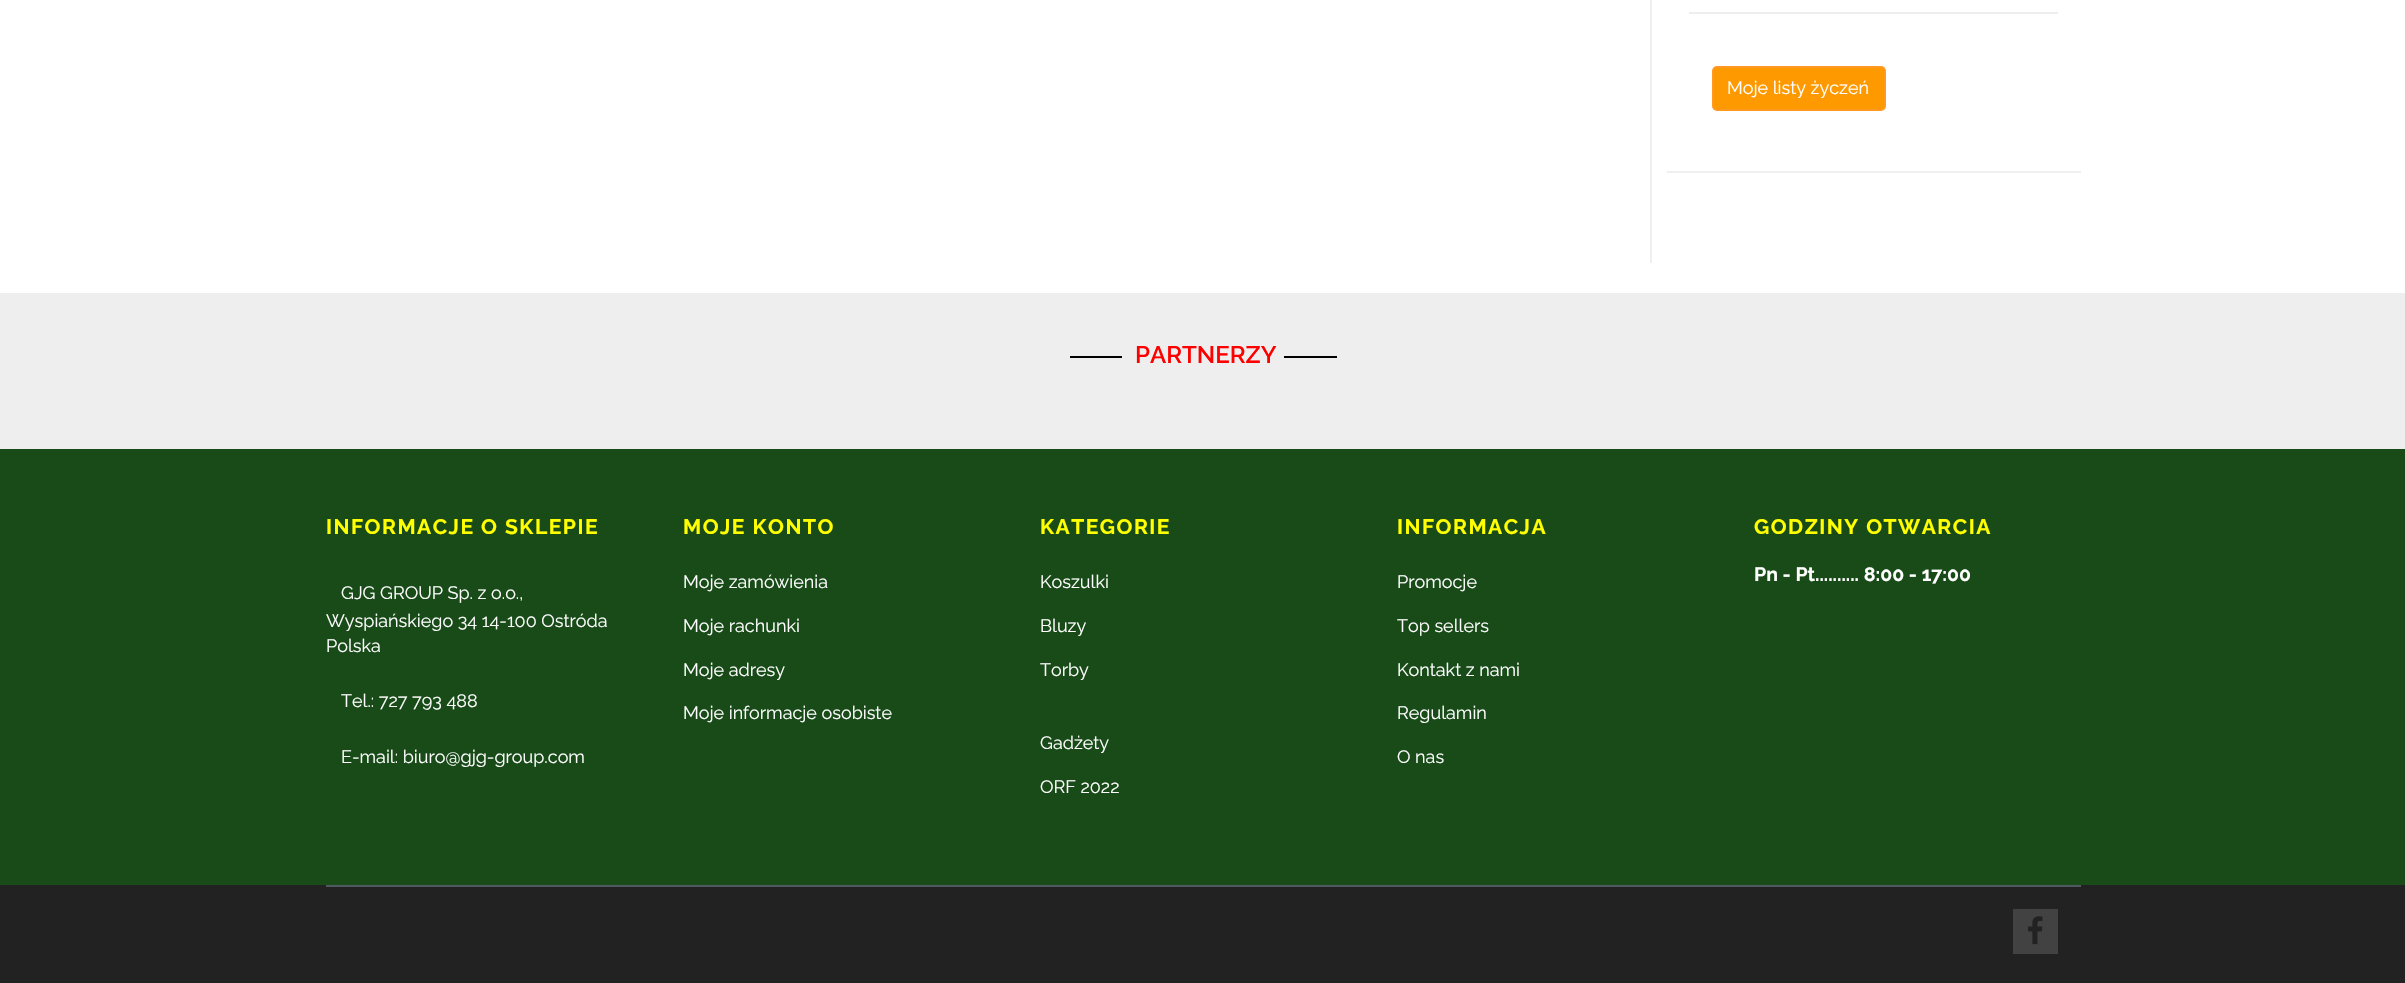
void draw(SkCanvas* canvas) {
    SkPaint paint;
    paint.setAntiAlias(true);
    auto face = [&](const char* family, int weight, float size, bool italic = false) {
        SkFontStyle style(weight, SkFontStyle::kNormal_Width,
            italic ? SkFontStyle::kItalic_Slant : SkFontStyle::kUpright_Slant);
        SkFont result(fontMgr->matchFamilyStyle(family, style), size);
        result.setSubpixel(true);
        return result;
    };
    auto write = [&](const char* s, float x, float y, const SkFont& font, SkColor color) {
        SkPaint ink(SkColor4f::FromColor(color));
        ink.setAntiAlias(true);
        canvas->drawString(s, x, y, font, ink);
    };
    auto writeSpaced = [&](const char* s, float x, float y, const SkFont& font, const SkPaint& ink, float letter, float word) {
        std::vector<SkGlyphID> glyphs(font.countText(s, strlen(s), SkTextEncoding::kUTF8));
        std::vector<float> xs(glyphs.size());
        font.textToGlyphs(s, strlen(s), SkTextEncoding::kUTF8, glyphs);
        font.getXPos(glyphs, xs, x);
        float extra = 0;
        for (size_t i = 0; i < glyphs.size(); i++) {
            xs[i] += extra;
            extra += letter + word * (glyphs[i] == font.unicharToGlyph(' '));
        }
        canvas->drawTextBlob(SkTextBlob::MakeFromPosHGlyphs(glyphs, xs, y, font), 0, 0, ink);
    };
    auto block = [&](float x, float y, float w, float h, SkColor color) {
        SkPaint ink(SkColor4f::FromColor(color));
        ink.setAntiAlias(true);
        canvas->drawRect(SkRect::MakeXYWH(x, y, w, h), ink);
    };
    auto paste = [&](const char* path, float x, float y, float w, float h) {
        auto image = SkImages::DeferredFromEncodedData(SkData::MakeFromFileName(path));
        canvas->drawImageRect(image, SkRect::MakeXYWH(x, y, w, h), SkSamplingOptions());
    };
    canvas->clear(SK_ColorWHITE);
    block(1650, 0, 2, 263, SkColorSetRGB(239, 239, 239));
    block(1667, 171, 414, 2, SkColorSetRGB(239, 239, 239));
    block(1689, 12, 369, 2, SkColorSetRGB(238, 238, 238));
    paint.setColor(SkColorSetRGB(255, 153, 0));
    canvas->drawRoundRect(SkRect::MakeXYWH(1713, 67, 172, 43), 4, 4, paint);
    paint.setStyle(SkPaint::kStroke_Style);
    paint.setStrokeWidth(2);
    paint.setColor(SkColorSetRGB(255, 153, 34));
    canvas->drawRoundRect(SkRect::MakeXYWH(1713, 67, 172, 43), 4, 4, paint);
    auto kFont1 = face("Raleway", 400, 18);
    write("Moje listy życzeń", 1727, 94, kFont1, SK_ColorWHITE);
    block(0, 293, 2405, 156, SkColorSetRGB(238, 238, 238));
    block(1070, 356, 52, 2, SK_ColorBLACK);
    auto kFont2 = face("Raleway", 600, 24);
    write("PARTNERZY", 1135, 363, kFont2, SkColorSetRGB(255, 0, 0));
    block(1284, 356, 53, 2, SK_ColorBLACK);
    block(0, 449, 2405, 436, SkColorSetRGB(25, 75, 25));
    auto kFont3 = face("Raleway", 700, 21);
    paint.setStyle(SkPaint::kFill_Style);
    paint.setColor(SkColorSetRGB(255, 255, 0));
    writeSpaced("INFORMACJE O SKLEPIE", 326, 534, kFont3, paint, 1.5f, 0);
    write("GJG GROUP Sp. z o.o.,", 341, 599, kFont1, SK_ColorWHITE);
    write("Wyspiańskiego 34 14-100 Ostróda", 326, 627, kFont1, SK_ColorWHITE);
    write("Polska", 326, 652, kFont1, SK_ColorWHITE);
    write("Tel.: 727 793 488", 341, 707, kFont1, SK_ColorWHITE);
    write("E-mail: biuro@gjg-group.com", 341, 763, kFont1, SK_ColorWHITE);
    writeSpaced("MOJE KONTO", 683, 534, kFont3, paint, 1.5f, 0);
    write("Moje zamówienia", 683, 588, kFont1, SK_ColorWHITE);
    write("Moje rachunki", 683, 632, kFont1, SK_ColorWHITE);
    write("Moje adresy", 683, 676, kFont1, SK_ColorWHITE);
    write("Moje informacje osobiste", 683, 719, kFont1, SK_ColorWHITE);
    writeSpaced("KATEGORIE", 1040, 534, kFont3, paint, 1.5f, 0);
    write("Koszulki", 1040, 588, kFont1, SK_ColorWHITE);
    write("Bluzy", 1040, 632, kFont1, SK_ColorWHITE);
    write("Torby", 1040, 676, kFont1, SK_ColorWHITE);
    write("Gadżety", 1040, 749, kFont1, SK_ColorWHITE);
    write("ORF 2022", 1040, 793, kFont1, SK_ColorWHITE);
    writeSpaced("INFORMACJA", 1397, 534, kFont3, paint, 1.5f, 0);
    write("Promocje", 1397, 588, kFont1, SK_ColorWHITE);
    write("Top sellers", 1397, 632, kFont1, SK_ColorWHITE);
    write("Kontakt z nami", 1397, 676, kFont1, SK_ColorWHITE);
    write("Regulamin", 1397, 719, kFont1, SK_ColorWHITE);
    write("O nas", 1397, 763, kFont1, SK_ColorWHITE);
    writeSpaced("GODZINY OTWARCIA", 1754, 534, kFont3, paint, 1.5f, 0);
    auto kFont4 = face("Raleway", 700, 19.5f);
    write("Pn - Pt.......... 8:00 - 17:00", 1754, 581, kFont4, SK_ColorWHITE);
    block(0, 885, 2405, 98, SkColorSetRGB(34, 34, 34));
    block(326, 885, 1755, 2, SkColorSetRGB(80, 88, 98));
    block(2013, 909, 45, 45, SkColorSetRGB(66, 66, 66));
    paste("pic1.png", 2028, 916, 15, 29);
}
